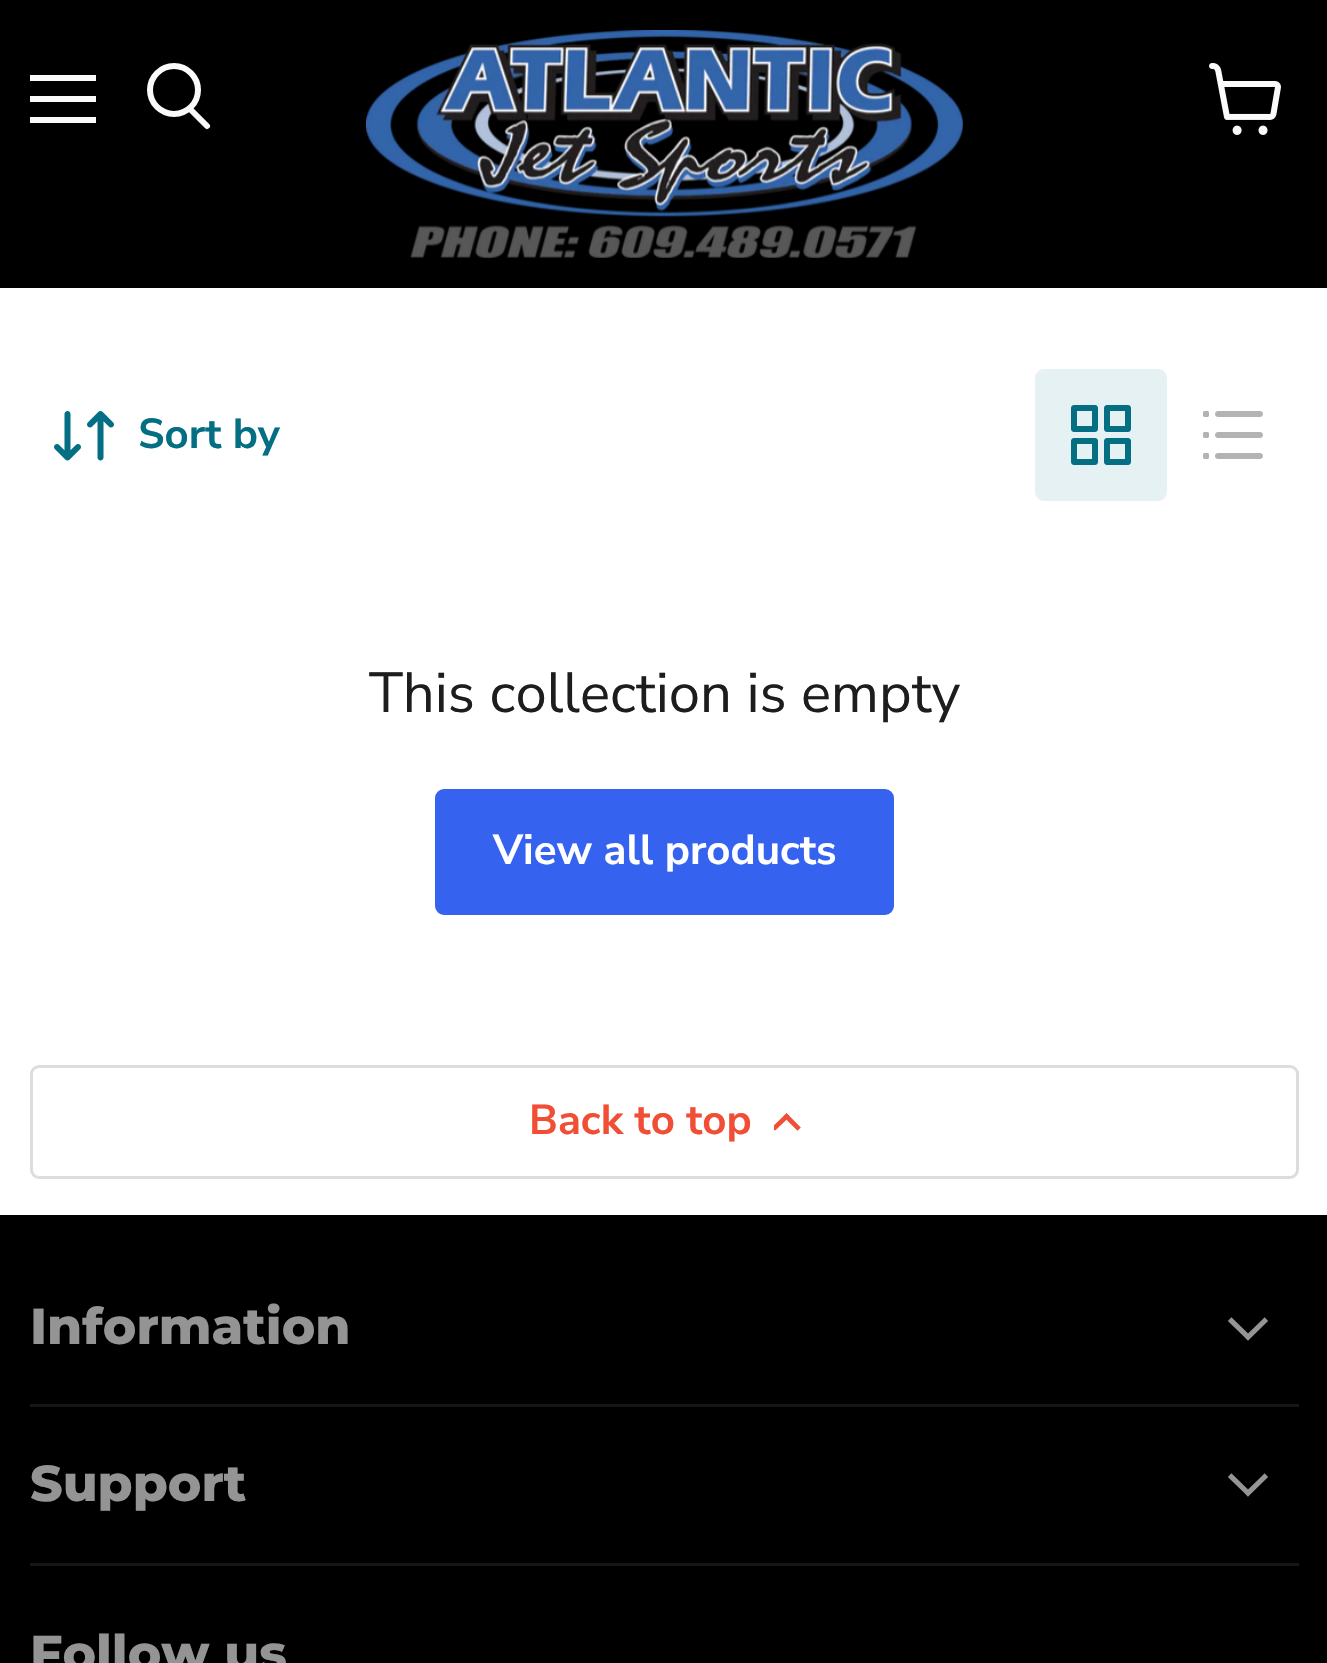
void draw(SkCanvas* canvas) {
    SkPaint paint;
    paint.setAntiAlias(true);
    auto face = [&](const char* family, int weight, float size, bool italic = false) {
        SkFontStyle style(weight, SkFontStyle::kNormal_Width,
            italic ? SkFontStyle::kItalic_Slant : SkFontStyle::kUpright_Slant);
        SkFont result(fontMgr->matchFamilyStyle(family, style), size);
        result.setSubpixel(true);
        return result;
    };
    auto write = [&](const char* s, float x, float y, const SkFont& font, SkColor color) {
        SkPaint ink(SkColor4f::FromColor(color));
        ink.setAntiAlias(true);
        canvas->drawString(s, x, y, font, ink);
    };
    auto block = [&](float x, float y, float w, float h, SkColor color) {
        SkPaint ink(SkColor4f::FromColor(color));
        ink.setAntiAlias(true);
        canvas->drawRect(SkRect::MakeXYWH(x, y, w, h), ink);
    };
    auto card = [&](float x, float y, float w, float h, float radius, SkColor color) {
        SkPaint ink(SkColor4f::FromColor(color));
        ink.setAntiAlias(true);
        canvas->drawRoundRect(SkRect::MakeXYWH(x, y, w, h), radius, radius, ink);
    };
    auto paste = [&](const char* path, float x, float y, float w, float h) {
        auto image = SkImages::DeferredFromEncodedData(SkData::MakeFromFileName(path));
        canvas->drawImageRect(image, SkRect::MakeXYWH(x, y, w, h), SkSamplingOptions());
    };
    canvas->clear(SK_ColorWHITE);
    block(0, 0, 1327, 288, SK_ColorBLACK);
    block(30, 75, 66, 6, SkColorSetRGB(250, 250, 250));
    block(30, 96, 66, 6, SkColorSetRGB(250, 250, 250));
    block(30, 117, 66, 6, SkColorSetRGB(250, 250, 250));
    paint.setStyle(SkPaint::kStroke_Style);
    paint.setStrokeWidth(6);
    paint.setStrokeCap(SkPaint::kRound_Cap);
    paint.setColor(SkColorSetRGB(250, 250, 250));
    canvas->drawPath(SkPathBuilder().moveTo(207, 126).lineTo(190.5f, 109.5f).detach(), paint);
    paint.setStrokeCap(SkPaint::kButt_Cap);
    canvas->drawCircle(174, 90, 24, paint);
    paste("pic1.png", 366, 30, 597, 228);
    paste("pic2.png", 1209, 63, 72, 72);
    paste("pic3.png", 54, 411, 60, 50);
    auto kFont1 = face("Nunito Sans", 700, 42);
    write("Sort by", 138, 448, kFont1, SkColorSetRGB(4, 110, 130));
    card(1035, 369, 132, 132, 9, SkColorSetRGB(230, 241, 243));
    paste("pic4.png", 1071, 405, 60, 60);
    paste("pic5.png", 1203, 411, 60, 48);
    auto kFont2 = face("Nunito Sans", 400, 56.25f);
    write("This collection is empty", 369, 712, kFont2, SkColorSetRGB(29, 29, 29));
    paint.setStyle(SkPaint::kFill_Style);
    paint.setColor(SkColorSetRGB(54, 98, 240));
    canvas->drawRoundRect(SkRect::MakeXYWH(436.5f, 790.5f, 456, 123), 7.5f, 7.5f, paint);
    paint.setStyle(SkPaint::kStroke_Style);
    paint.setStrokeWidth(3);
    canvas->drawRoundRect(SkRect::MakeXYWH(436.5f, 790.5f, 456, 123), 7.5f, 7.5f, paint);
    write("View all products", 493, 864, kFont1, SK_ColorWHITE);
    paint.setColor(SkColorSetRGB(221, 221, 221));
    canvas->drawRoundRect(SkRect::MakeXYWH(31.5f, 1066.5f, 1266, 111), 7.5f, 7.5f, paint);
    write("Back to top", 529, 1134, kFont1, SkColorSetRGB(240, 79, 54));
    canvas->save();
    canvas->clipRect(SkRect::MakeXYWH(774, 1110, 30, 24));
    paint.setStrokeWidth(4.7f);
    paint.setStrokeCap(SkPaint::kSquare_Cap);
    paint.setColor(SkColorSetRGB(240, 79, 54));
    canvas->drawPath(SkPathBuilder().moveTo(786.5f, 1116.5f).lineTo(775, 1127.5f).detach(), paint);
    canvas->restore();
    canvas->drawPath(SkPathBuilder().moveTo(786.5f, 1116.5f).lineTo(797.5f, 1127.5f).detach(), paint);
    block(0, 1215, 1327, 448, SK_ColorBLACK);
    block(30, 1404, 1269, 3, SkColorSetRGB(22, 22, 22));
    auto kFont3 = face("Montserrat", 800, 50.5f);
    write("Information", 30, 1344, kFont3, SkColorSetRGB(148, 148, 148));
    paint.setStrokeWidth(5.2f);
    paint.setColor(SkColorSetRGB(148, 148, 148));
    canvas->drawPath(SkPathBuilder().moveTo(1248, 1337).lineTo(1264.5f, 1321).moveTo(1248, 1337).lineTo(1231.5f, 1321).detach(), paint);
    block(30, 1563, 1269, 3, SkColorSetRGB(22, 22, 22));
    write("Support", 30, 1501, kFont3, SkColorSetRGB(148, 148, 148));
    canvas->drawPath(SkPathBuilder().moveTo(1248, 1493).lineTo(1264.5f, 1477).moveTo(1248, 1493).lineTo(1231.5f, 1477).detach(), paint);
    write("Follow us", 30, 1671, kFont3, SkColorSetRGB(148, 148, 148));
}
